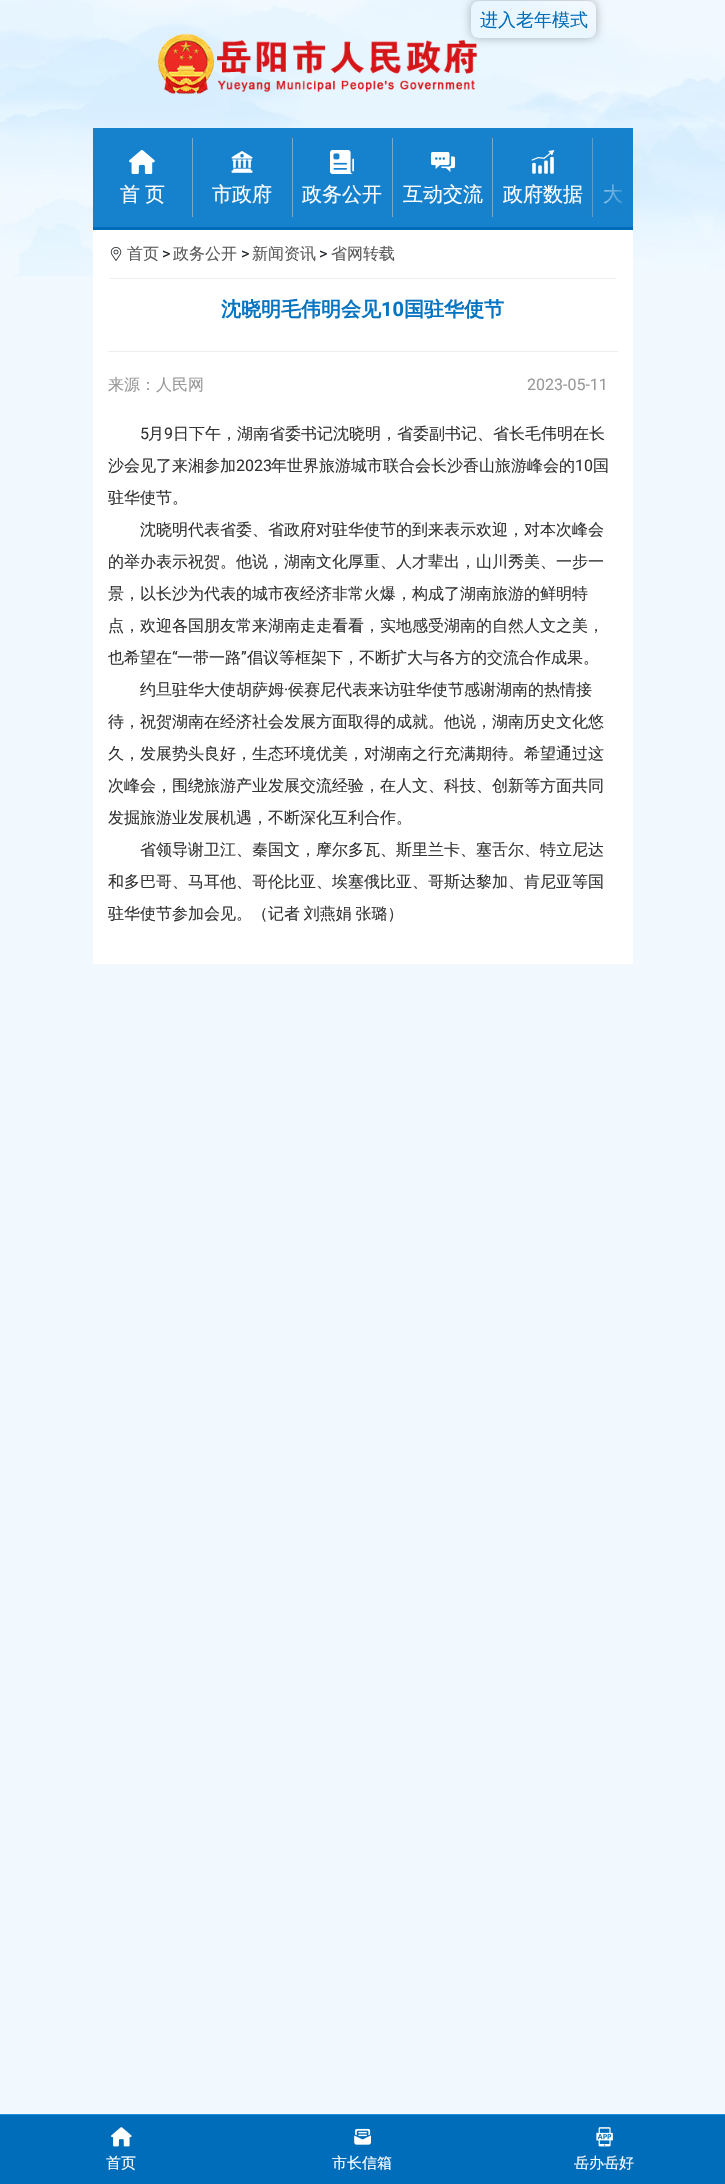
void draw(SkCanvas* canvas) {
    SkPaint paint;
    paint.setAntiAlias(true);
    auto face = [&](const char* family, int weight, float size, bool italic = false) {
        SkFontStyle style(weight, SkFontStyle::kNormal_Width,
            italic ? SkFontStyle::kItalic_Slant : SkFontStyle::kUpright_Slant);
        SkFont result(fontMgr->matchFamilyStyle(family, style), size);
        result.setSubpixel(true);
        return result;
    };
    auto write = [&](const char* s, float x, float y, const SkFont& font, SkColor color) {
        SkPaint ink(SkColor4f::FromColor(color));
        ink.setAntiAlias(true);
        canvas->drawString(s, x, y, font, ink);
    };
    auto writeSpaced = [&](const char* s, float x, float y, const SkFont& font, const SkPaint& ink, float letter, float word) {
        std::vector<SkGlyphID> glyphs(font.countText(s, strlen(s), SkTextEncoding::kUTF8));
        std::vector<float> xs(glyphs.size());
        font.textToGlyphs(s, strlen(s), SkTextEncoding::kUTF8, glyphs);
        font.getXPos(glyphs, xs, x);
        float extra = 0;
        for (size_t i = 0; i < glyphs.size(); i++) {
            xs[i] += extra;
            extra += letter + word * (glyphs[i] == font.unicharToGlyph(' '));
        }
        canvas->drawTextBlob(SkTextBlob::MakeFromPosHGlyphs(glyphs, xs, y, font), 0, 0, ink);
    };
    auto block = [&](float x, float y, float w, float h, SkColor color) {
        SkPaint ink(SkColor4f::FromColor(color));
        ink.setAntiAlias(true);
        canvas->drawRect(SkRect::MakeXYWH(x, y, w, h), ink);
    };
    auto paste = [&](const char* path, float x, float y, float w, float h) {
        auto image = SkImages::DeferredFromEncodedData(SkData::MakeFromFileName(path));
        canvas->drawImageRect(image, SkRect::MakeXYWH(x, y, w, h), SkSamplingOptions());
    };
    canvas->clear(SkColorSetRGB(241, 249, 255));
    paste("pic1.png", 0, 0, 725, 276);
    paste("pic2.png", 158, 33, 320, 61);
    canvas->save();
    canvas->clipPath(SkPathBuilder(SkPathFillType::kEvenOdd).moveTo(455, 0).lineTo(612, 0).lineTo(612, 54).lineTo(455, 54).close().moveTo(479, 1).lineTo(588, 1).cubicTo(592.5f, 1, 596, 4.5f, 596, 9).lineTo(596, 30).cubicTo(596, 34.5f, 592.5f, 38, 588, 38).lineTo(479, 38).cubicTo(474.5f, 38, 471, 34.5f, 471, 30).lineTo(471, 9).cubicTo(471, 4.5f, 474.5f, 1, 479, 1).close().detach(), true);
    paint.setColor(SkColorSetARGB(77, 0, 0, 0));
    paint.setMaskFilter(SkMaskFilter::MakeBlur(kNormal_SkBlurStyle, 5));
    canvas->drawRoundRect(SkRect::MakeXYWH(471, 1, 125, 37), 8, 8, paint);
    paint.setMaskFilter(nullptr);
    canvas->restore();
    auto kFont1 = face("WenQuanYi Zen Hei", 500, 18);
    write("进入老年模式", 480, 26, kFont1, SkColorSetRGB(0, 109, 186));
    block(93, 128, 540, 99, SkColorSetRGB(22, 129, 204));
    auto kFont2 = face("WenQuanYi Zen Hei", 500, 20);
    write("政府数据", 503, 201, kFont2, SK_ColorWHITE);
    block(592, 138, 1, 79, SkColorSetRGB(124, 168, 202));
    write("大", 603, 201, kFont2, SK_ColorWHITE);
    {
        const SkColor colors[] = {SkColorSetARGB(0, 22, 129, 204), SkColorSetRGB(22, 129, 204)};
        const float stops[] = {0, 1};
        const SkPoint ends[] = {{577, 178}, {633, 178}};
        paint.setShader(SkGradientShader::MakeLinear(ends, colors, stops, 2, SkTileMode::kClamp));
        paint.setAlpha(255);
    }
    canvas->drawRect(SkRect::MakeXYWH(578, 138, 45, 79), paint);
    paste("pic3.png", 129, 150, 26, 24);
    paint.setShader(nullptr);
    paint.setColor(SK_ColorWHITE);
    writeSpaced("首 页", 120, 201, kFont2, paint, 0, -1);
    block(192, 138, 1, 79, SkColorSetRGB(124, 168, 202));
    paste("pic4.png", 231, 151, 22, 22);
    write("市政府", 212, 201, kFont2, SK_ColorWHITE);
    block(292, 138, 1, 79, SkColorSetRGB(124, 168, 202));
    paste("pic5.png", 330, 150, 24, 24);
    write("政务公开", 302, 201, kFont2, SK_ColorWHITE);
    block(392, 138, 1, 79, SkColorSetRGB(124, 168, 202));
    paste("pic6.png", 431, 152, 25, 20);
    write("互动交流", 403, 201, kFont2, SK_ColorWHITE);
    block(492, 138, 1, 79, SkColorSetRGB(124, 168, 202));
    paste("pic7.png", 531, 150, 24, 24);
    block(93, 230, 540, 734, SK_ColorWHITE);
    block(93, 227, 540, 3, SkColorSetRGB(0, 109, 186));
    block(110, 278, 506, 1, SkColorSetRGB(238, 238, 238));
    paste("pic8.png", 110, 247, 12, 14);
    auto kFont3 = face("WenQuanYi Zen Hei", 500, 16);
    write("首页", 127, 259, kFont3, SkColorSetRGB(89, 89, 89));
    auto kFont4 = face("Roboto", 400, 16);
    write(">", 162, 259, kFont4, SkColorSetRGB(33, 37, 41));
    write("政务公开", 173, 259, kFont3, SkColorSetRGB(89, 89, 89));
    write(">", 241, 259, kFont4, SkColorSetRGB(33, 37, 41));
    write("新闻资讯", 252, 259, kFont3, SkColorSetRGB(89, 89, 89));
    write(">", 319, 259, kFont4, SkColorSetRGB(33, 37, 41));
    write("省网转载", 331, 259, kFont3, SkColorSetRGB(89, 89, 89));
    auto kFont5 = face("WenQuanYi Zen Hei", 700, 20);
    write("沈晓明毛伟明会见", 221, 316, kFont5, SkColorSetRGB(6, 116, 193));
    auto kFont6 = face("Roboto", 700, 20);
    write("10", 381, 316, kFont6, SkColorSetRGB(6, 116, 193));
    write("国驻华使节", 404, 316, kFont5, SkColorSetRGB(6, 116, 193));
    block(108, 351, 510, 1, SkColorSetRGB(238, 238, 238));
    write("来源：人民网", 108, 390, kFont3, SkColorSetRGB(153, 153, 153));
    write("2023-05-11", 527, 390, kFont4, SkColorSetRGB(153, 153, 153));
    write("5", 140, 439, kFont4, SkColorSetRGB(51, 51, 51));
    write("月", 148, 439, kFont3, SkColorSetRGB(51, 51, 51));
    write("9", 164, 439, kFont4, SkColorSetRGB(51, 51, 51));
    write("日下午，湖南省委书记沈晓明，省委副书记、省长毛伟明在长", 173, 439, kFont3, SkColorSetRGB(51, 51, 51));
    write("沙会见了来湘参加", 108, 471, kFont3, SkColorSetRGB(51, 51, 51));
    write("2023", 236, 471, kFont4, SkColorSetRGB(51, 51, 51));
    write("年世界旅游城市联合会长沙香山旅游峰会的", 271, 471, kFont3, SkColorSetRGB(51, 51, 51));
    write("10", 575, 471, kFont4, SkColorSetRGB(51, 51, 51));
    write("国", 593, 471, kFont3, SkColorSetRGB(51, 51, 51));
    write("驻华使节。", 108, 503, kFont3, SkColorSetRGB(51, 51, 51));
    write("沈晓明代表省委、省政府对驻华使节的到来表示欢迎，对本次峰会", 140, 535, kFont3, SkColorSetRGB(51, 51, 51));
    write("的举办表示祝贺。他说，湖南文化厚重、人才辈出，山川秀美、一步一", 108, 567, kFont3, SkColorSetRGB(51, 51, 51));
    write("景，以长沙为代表的城市夜经济非常火爆，构成了湖南旅游的鲜明特", 108, 599, kFont3, SkColorSetRGB(51, 51, 51));
    write("点，欢迎各国朋友常来湖南走走看看，实地感受湖南的自然人文之美，", 108, 631, kFont3, SkColorSetRGB(51, 51, 51));
    write("也希望在", 108, 663, kFont3, SkColorSetRGB(51, 51, 51));
    write("“", 172, 663, kFont4, SkColorSetRGB(51, 51, 51));
    write("一带一路", 177, 663, kFont3, SkColorSetRGB(51, 51, 51));
    write("”", 241, 663, kFont4, SkColorSetRGB(51, 51, 51));
    write("倡议等框架下，不断扩大与各方的交流合作成果。", 247, 663, kFont3, SkColorSetRGB(51, 51, 51));
    write("约旦驻华大使胡萨姆", 140, 695, kFont3, SkColorSetRGB(51, 51, 51));
    write("·", 284, 695, kFont4, SkColorSetRGB(51, 51, 51));
    write("侯赛尼代表来访驻华使节感谢湖南的热情接", 288, 695, kFont3, SkColorSetRGB(51, 51, 51));
    write("待，祝贺湖南在经济社会发展方面取得的成就。他说，湖南历史文化悠", 108, 727, kFont3, SkColorSetRGB(51, 51, 51));
    write("久，发展势头良好，生态环境优美，对湖南之行充满期待。希望通过这", 108, 759, kFont3, SkColorSetRGB(51, 51, 51));
    write("次峰会，围绕旅游产业发展交流经验，在人文、科技、创新等方面共同", 108, 791, kFont3, SkColorSetRGB(51, 51, 51));
    write("发掘旅游业发展机遇，不断深化互利合作。", 108, 823, kFont3, SkColorSetRGB(51, 51, 51));
    write("省领导谢卫江、秦国文，摩尔多瓦、斯里兰卡、塞舌尔、特立尼达", 140, 855, kFont3, SkColorSetRGB(51, 51, 51));
    write("和多巴哥、马耳他、哥伦比亚、埃塞俄比亚、哥斯达黎加、肯尼亚等国", 108, 887, kFont3, SkColorSetRGB(51, 51, 51));
    paint.setColor(SkColorSetRGB(51, 51, 51));
    writeSpaced("驻华使节参加会见。（记者 刘燕娟 张璐）", 108, 919, kFont3, paint, 0, -1);
    block(0, 2115, 725, 69, SkColorSetRGB(0, 109, 186));
    block(0, 2114, 725, 1, SkColorSetRGB(35, 144, 221));
    paste("pic9.png", 111, 2127, 21, 20);
    auto kFont7 = face("WenQuanYi Zen Hei", 500, 15);
    write("首页", 106, 2168, kFont7, SK_ColorWHITE);
    paste("pic10.png", 354, 2128, 17, 17);
    write("市长信箱", 332, 2168, kFont7, SK_ColorWHITE);
    paste("pic11.png", 596, 2127, 17, 20);
    write("岳办岳好", 574, 2168, kFont7, SK_ColorWHITE);
}
